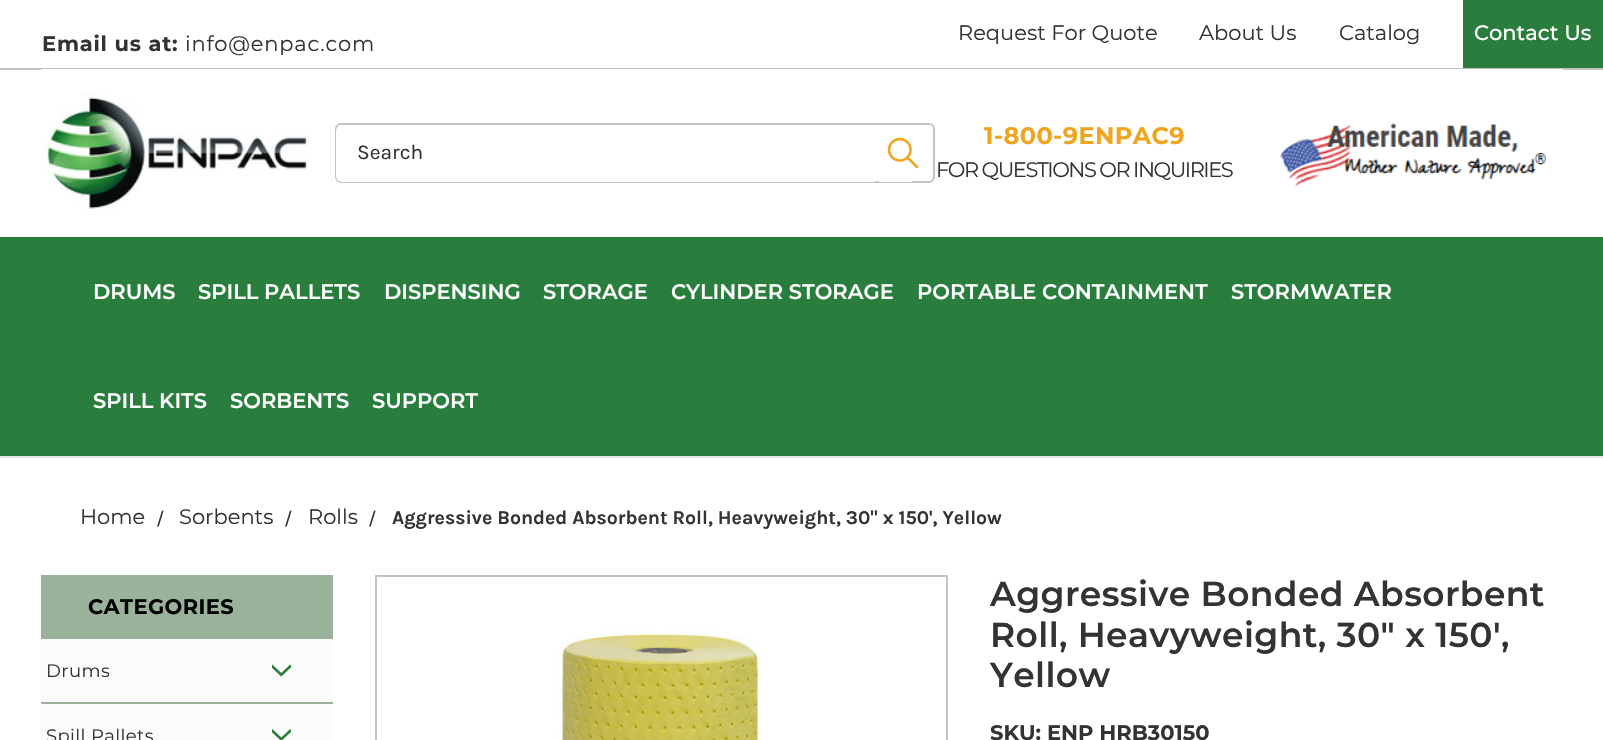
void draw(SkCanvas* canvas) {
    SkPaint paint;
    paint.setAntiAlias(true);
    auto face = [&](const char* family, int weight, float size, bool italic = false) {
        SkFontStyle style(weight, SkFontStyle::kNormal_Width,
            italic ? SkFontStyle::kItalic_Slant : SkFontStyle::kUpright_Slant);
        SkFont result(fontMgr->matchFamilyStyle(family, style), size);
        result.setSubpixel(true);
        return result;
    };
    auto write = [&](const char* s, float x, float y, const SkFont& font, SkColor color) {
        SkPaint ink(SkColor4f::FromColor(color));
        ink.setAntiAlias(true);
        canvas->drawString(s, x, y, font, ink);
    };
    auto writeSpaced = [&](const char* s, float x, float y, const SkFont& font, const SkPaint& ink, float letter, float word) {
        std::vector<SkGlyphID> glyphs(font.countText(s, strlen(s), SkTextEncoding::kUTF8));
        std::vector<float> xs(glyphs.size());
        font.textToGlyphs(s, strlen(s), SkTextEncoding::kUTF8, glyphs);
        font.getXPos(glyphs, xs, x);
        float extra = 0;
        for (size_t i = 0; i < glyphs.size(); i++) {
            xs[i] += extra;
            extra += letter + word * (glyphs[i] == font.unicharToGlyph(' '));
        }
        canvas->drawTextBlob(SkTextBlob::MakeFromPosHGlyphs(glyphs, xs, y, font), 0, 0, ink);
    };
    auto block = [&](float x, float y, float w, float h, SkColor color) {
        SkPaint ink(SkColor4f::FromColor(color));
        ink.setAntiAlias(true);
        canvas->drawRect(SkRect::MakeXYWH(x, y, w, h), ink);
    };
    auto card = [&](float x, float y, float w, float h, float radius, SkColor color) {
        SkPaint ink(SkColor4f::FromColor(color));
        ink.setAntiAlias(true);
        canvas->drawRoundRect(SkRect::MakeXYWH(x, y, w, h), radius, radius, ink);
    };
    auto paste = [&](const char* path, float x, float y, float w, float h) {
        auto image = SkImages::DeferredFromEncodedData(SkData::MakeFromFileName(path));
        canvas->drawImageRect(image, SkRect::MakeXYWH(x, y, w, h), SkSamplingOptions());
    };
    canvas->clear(SK_ColorWHITE);
    block(0, 456, 1603, 2, SkColorSetRGB(229, 229, 229));
    block(0, 68, 1603, 2, SkColorSetRGB(195, 195, 195));
    auto kFont1 = face("Montserrat", 700, 21);
    paint.setColor(SkColorSetRGB(51, 51, 51));
    writeSpaced("Email us at:", 42, 51, kFont1, paint, 0.8f, 0);
    auto kFont2 = face("Montserrat", 400, 21);
    writeSpaced("info@enpac.com", 185, 51, kFont2, paint, 0.8f, 0);
    write("Request For Quote", 958, 40, kFont2, SkColorSetRGB(51, 51, 51));
    write("About Us", 1199, 40, kFont2, SkColorSetRGB(51, 51, 51));
    write("Catalog", 1339, 40, kFont2, SkColorSetRGB(51, 51, 51));
    block(1463, 0, 140, 68, SkColorSetRGB(42, 126, 61));
    auto kFont3 = face("Montserrat", 500, 21);
    write("Contact Us", 1474, 40, kFont3, SK_ColorWHITE);
    block(41, 69, 1522, 1, SK_ColorWHITE);
    paste("pic1.png", 41, 93, 271, 117);
    paint.setStyle(SkPaint::kStroke_Style);
    paint.setStrokeWidth(2);
    paint.setColor(SkColorSetRGB(196, 196, 196));
    canvas->drawRoundRect(SkRect::MakeXYWH(336, 124, 598, 58), 5, 5, paint);
    card(336, 125, 543, 57, 6, SK_ColorWHITE);
    auto kFont4 = face("Karla", 400, 21);
    write("Search", 357, 159, kFont4, SkColorSetRGB(51, 51, 51));
    block(879, 181, 33, 1, SK_ColorWHITE);
    paste("pic2.png", 887, 137, 32, 32);
    auto kFont5 = face("Montserrat", 700, 24);
    paint.setStyle(SkPaint::kFill_Style);
    paint.setColor(SkColorSetRGB(240, 165, 32));
    writeSpaced("1-800-9ENPAC9", 984, 144, kFont5, paint, 0.4f, 0);
    paint.setColor(SkColorSetRGB(51, 51, 51));
    writeSpaced("FOR QUESTIONS OR INQUIRIES", 936, 177, kFont2, paint, -1.5f, 0);
    paste("pic3.png", 1280, 123, 267, 64);
    block(0, 237, 1603, 219, SkColorSetRGB(42, 126, 61));
    auto kFont6 = face("Montserrat", 600, 21);
    write("DRUMS", 93, 299, kFont6, SK_ColorWHITE);
    write("SPILL PALLETS", 198, 299, kFont6, SK_ColorWHITE);
    write("DISPENSING", 384, 299, kFont6, SK_ColorWHITE);
    write("STORAGE", 543, 299, kFont6, SK_ColorWHITE);
    write("CYLINDER STORAGE", 671, 299, kFont6, SK_ColorWHITE);
    write("PORTABLE CONTAINMENT", 917, 299, kFont6, SK_ColorWHITE);
    write("STORMWATER", 1231, 299, kFont6, SK_ColorWHITE);
    write("SPILL KITS", 93, 408, kFont6, SK_ColorWHITE);
    write("SORBENTS", 230, 408, kFont6, SK_ColorWHITE);
    write("SUPPORT", 372, 408, kFont6, SK_ColorWHITE);
    write("Home", 80, 524, kFont2, SkColorSetRGB(51, 51, 51));
    auto kFont7 = face("Karla", 400, 19.5f);
    write("/", 156, 525, kFont7, SkColorSetRGB(51, 51, 51));
    write("Sorbents", 179, 524, kFont2, SkColorSetRGB(51, 51, 51));
    write("/", 284, 525, kFont7, SkColorSetRGB(51, 51, 51));
    write("Rolls", 308, 524, kFont2, SkColorSetRGB(51, 51, 51));
    write("/", 368, 525, kFont7, SkColorSetRGB(51, 51, 51));
    auto kFont8 = face("Karla", 700, 19.5f);
    write("Aggressive Bonded Absorbent Roll, Heavyweight, 30\" x 150', Yellow", 392, 524, kFont8, SkColorSetRGB(51, 51, 51));
    block(41, 575, 292, 64, SkColorSetRGB(154, 178, 154));
    paint.setColor(SK_ColorBLACK);
    writeSpaced("CATEGORIES", 88, 614, kFont1, paint, 0.4f, 0);
    block(41, 639, 292, 63, SkColorSetRGB(251, 251, 251));
    block(41, 702, 292, 2, SkColorSetRGB(154, 178, 154));
    auto kFont9 = face("Montserrat", 400, 18);
    paint.setColor(SkColorSetRGB(51, 51, 51));
    writeSpaced("Drums", 46, 677, kFont9, paint, 0.4f, 0);
    paste("pic4.png", 272, 664, 19, 13);
    block(41, 704, 292, 36, SkColorSetRGB(251, 251, 251));
    writeSpaced("Spill Pallets", 46, 742, kFont9, paint, 0.4f, 0);
    paste("pic5.png", 272, 729, 19, 11);
    paint.setStyle(SkPaint::kStroke_Style);
    paint.setColor(SkColorSetRGB(196, 196, 196));
    canvas->drawRect(SkRect::MakeXYWH(376, 576, 571, 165), paint);
    paste("pic6.png", 558, 629, 203, 111);
    auto kFont10 = face("Montserrat", 600, 34.5f);
    paint.setStyle(SkPaint::kFill_Style);
    paint.setColor(SkColorSetRGB(51, 51, 51));
    writeSpaced("Aggressive Bonded Absorbent", 990, 606, kFont10, paint, 0.4f, 0);
    writeSpaced("Roll, Heavyweight, 30\" x 150',", 990, 647, kFont10, paint, 0.4f, 0);
    writeSpaced("Yellow", 990, 687, kFont10, paint, 0.4f, 0);
    write("SKU: ENP HRB30150", 990, 740, kFont1, SkColorSetRGB(51, 51, 51));
}
